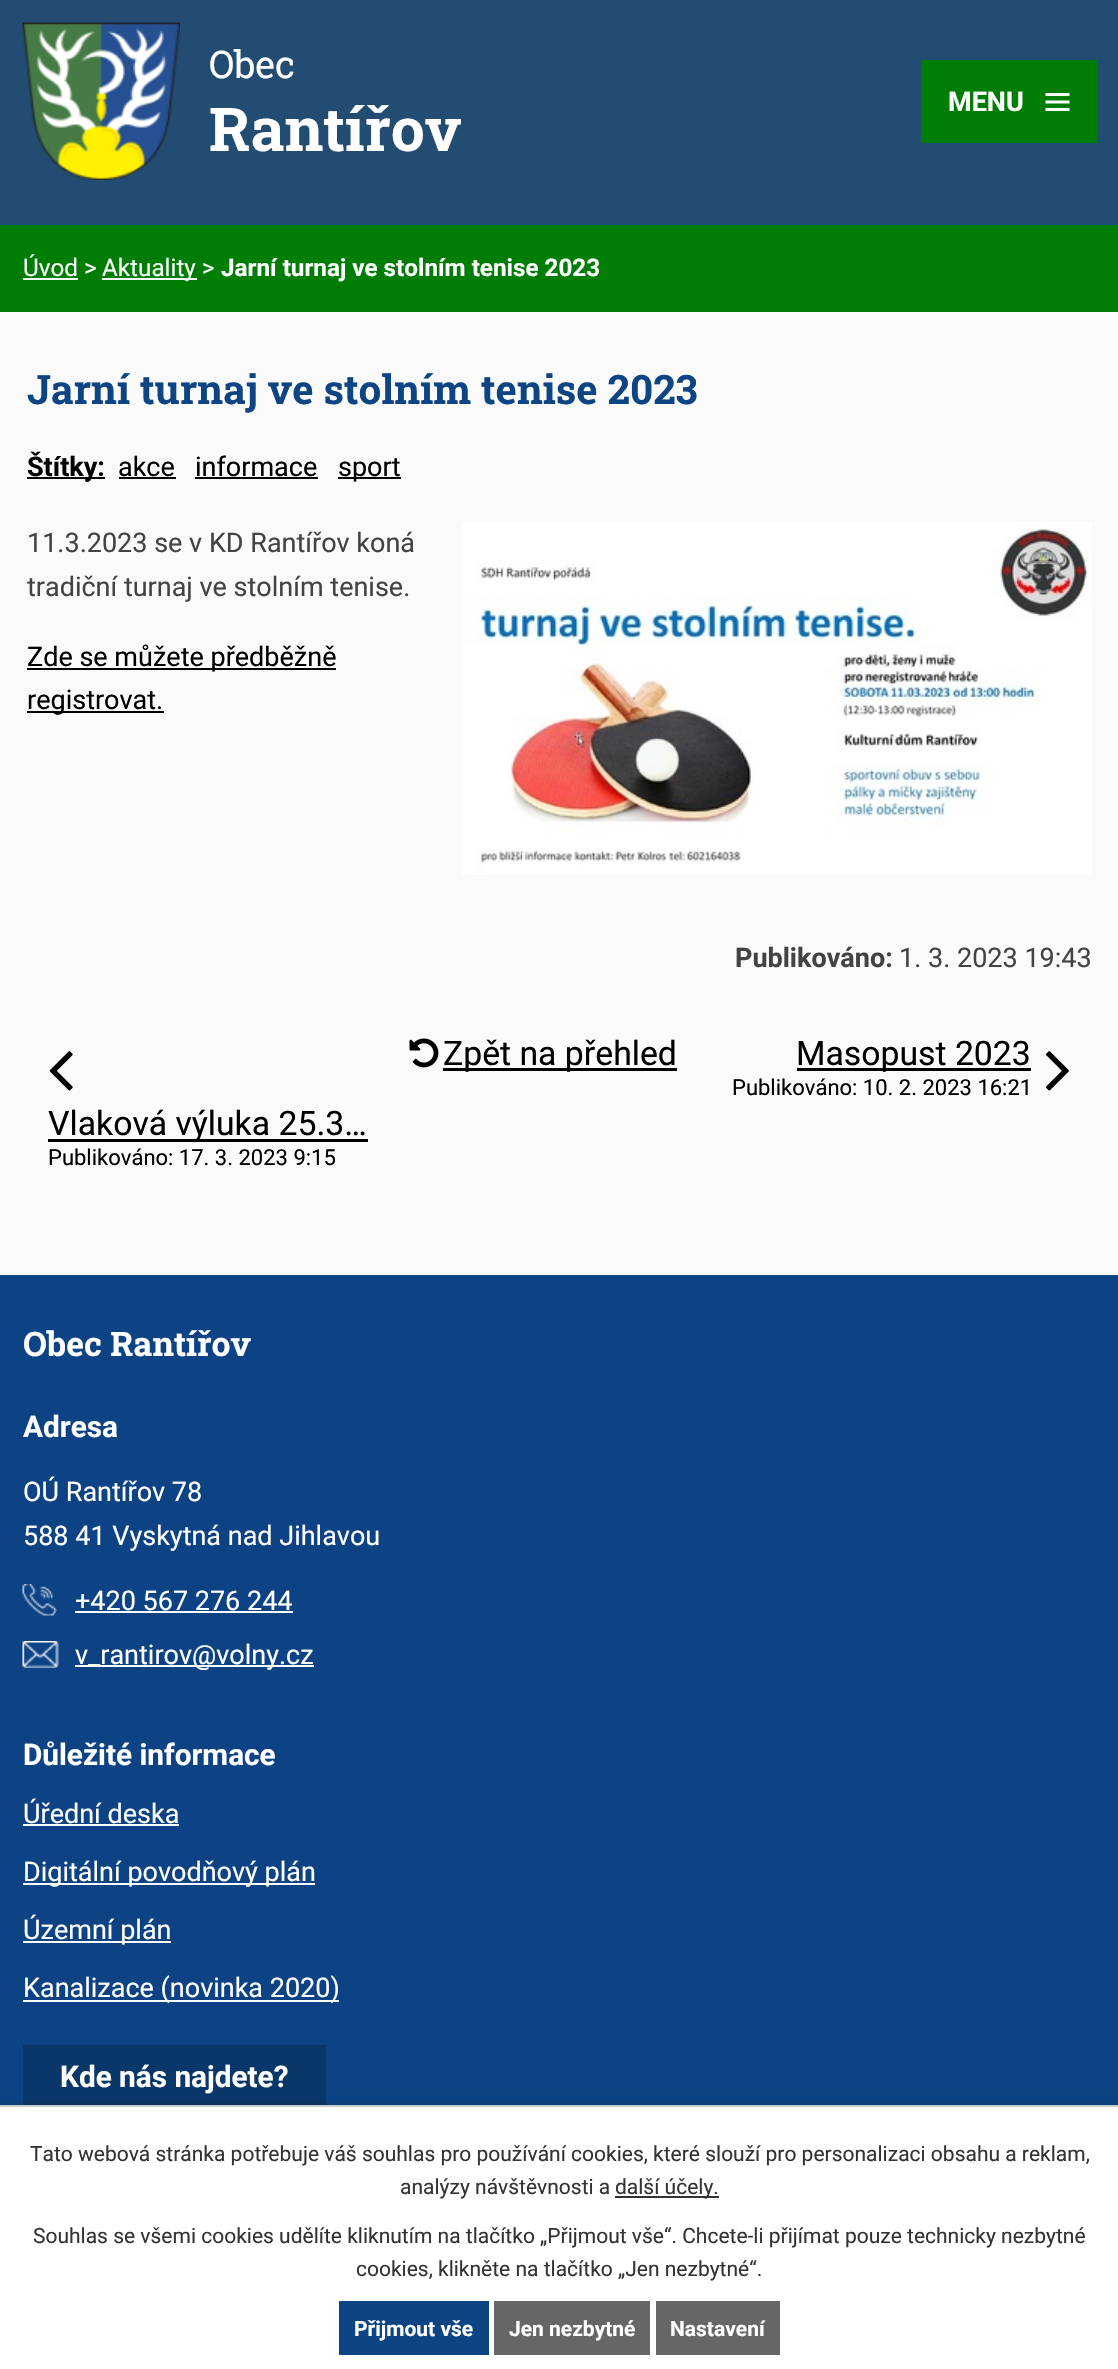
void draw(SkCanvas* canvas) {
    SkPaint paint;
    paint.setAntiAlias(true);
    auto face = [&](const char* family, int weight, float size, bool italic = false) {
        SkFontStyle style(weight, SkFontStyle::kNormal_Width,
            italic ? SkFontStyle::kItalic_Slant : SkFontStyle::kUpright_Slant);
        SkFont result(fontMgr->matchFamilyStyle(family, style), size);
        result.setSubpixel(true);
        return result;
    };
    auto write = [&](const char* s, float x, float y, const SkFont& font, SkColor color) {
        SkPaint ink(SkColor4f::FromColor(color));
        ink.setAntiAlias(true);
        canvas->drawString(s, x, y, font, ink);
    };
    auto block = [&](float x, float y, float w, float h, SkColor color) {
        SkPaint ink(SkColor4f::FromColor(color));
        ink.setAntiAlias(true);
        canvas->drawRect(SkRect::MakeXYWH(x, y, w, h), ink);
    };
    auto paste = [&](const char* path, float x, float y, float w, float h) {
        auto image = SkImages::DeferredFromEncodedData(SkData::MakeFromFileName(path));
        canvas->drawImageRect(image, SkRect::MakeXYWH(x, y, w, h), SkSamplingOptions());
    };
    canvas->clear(SkColorSetRGB(250, 250, 250));
    block(0, 0, 1118, 225, SkColorSetRGB(34, 76, 113));
    paste("pic1.png", 22, 22, 158, 158);
    auto kFont1 = face("Roboto Slab", 400, 38);
    write("Obec", 209, 78, kFont1, SK_ColorWHITE);
    auto kFont2 = face("Roboto Slab", 700, 60.5f);
    write("Rantířov", 209, 151, kFont2, SK_ColorWHITE);
    block(921, 60, 176, 83, SkColorSetRGB(0, 125, 5));
    auto kFont3 = face("Roboto", 700, 27);
    write("MENU", 948, 111, kFont3, SK_ColorWHITE);
    paste("pic2.png", 1045, 93, 25, 18);
    block(0, 225, 1118, 87, SkColorSetRGB(0, 125, 5));
    auto kFont4 = face("Roboto", 400, 24.25f);
    write("Úvod >", 23, 276, kFont4, SK_ColorWHITE);
    block(23, 278, 55, 2, SK_ColorWHITE);
    block(102, 278, 95, 2, SK_ColorWHITE);
    write("Aktuality >", 102, 276, kFont4, SK_ColorWHITE);
    auto kFont5 = face("Roboto", 700, 24.25f);
    write("Jarní turnaj ve stolním tenise 2023", 221, 276, kFont5, SK_ColorWHITE);
    auto kFont6 = face("Roboto Slab", 700, 40.5f);
    write("Jarní turnaj ve stolním tenise 2023", 27, 404, kFont6, SkColorSetRGB(12, 68, 132));
    block(27, 477, 78, 2, SK_ColorBLACK);
    write("Štítky:", 27, 476, kFont3, SK_ColorBLACK);
    auto kFont7 = face("Roboto", 400, 27);
    write("akce", 118, 476, kFont7, SK_ColorBLACK);
    block(119, 477, 57, 2, SK_ColorBLACK);
    write("informace", 195, 476, kFont7, SK_ColorBLACK);
    block(195, 477, 123, 2, SK_ColorBLACK);
    block(338, 477, 63, 2, SK_ColorBLACK);
    write("sport", 338, 476, kFont7, SK_ColorBLACK);
    write("11.3.2023 se v KD Rantířov koná", 27, 552, kFont7, SkColorSetRGB(67, 67, 67));
    paint.setStyle(SkPaint::kStroke_Style);
    paint.setStrokeWidth(2);
    paint.setColor(SK_ColorWHITE);
    canvas->drawRect(SkRect::MakeXYWH(463, 523, 628, 351), paint);
    paste("pic3.png", 463, 523, 627, 350);
    write("tradiční turnaj ve stolním tenise.", 27, 596, kFont7, SkColorSetRGB(67, 67, 67));
    block(27, 668, 309, 2, SK_ColorBLACK);
    write("Zde se můžete předběžně", 27, 666, kFont7, SK_ColorBLACK);
    block(27, 711, 137, 2, SK_ColorBLACK);
    write("registrovat.", 27, 709, kFont7, SK_ColorBLACK);
    write("Publikováno:", 735, 967, kFont3, SkColorSetRGB(67, 67, 67));
    write("1. 3. 2023 19:43", 899, 967, kFont7, SkColorSetRGB(67, 67, 67));
    paste("pic4.png", 409, 1038, 30, 30);
    block(443, 1068, 234, 3, SK_ColorBLACK);
    auto kFont8 = face("Roboto", 400, 33.75f);
    write("Zpět na přehled", 443, 1065, kFont8, SK_ColorBLACK);
    block(797, 1068, 234, 3, SK_ColorBLACK);
    write("Masopust 2023", 796, 1065, kFont8, SK_ColorBLACK);
    auto kFont9 = face("Roboto", 400, 22);
    write("Publikováno: 10. 2. 2023 16:21", 732, 1095, kFont9, SK_ColorBLACK);
    paste("pic5.png", 1046, 1051, 23, 40);
    paste("pic6.png", 49, 1051, 24, 40);
    block(48, 1139, 320, 3, SK_ColorBLACK);
    write("Vlaková výluka 25.3…", 48, 1135, kFont8, SK_ColorBLACK);
    write("Publikováno: 17. 3. 2023 9:15", 48, 1165, kFont9, SK_ColorBLACK);
    block(0, 1275, 1118, 830, SkColorSetRGB(13, 67, 132));
    auto kFont10 = face("Roboto Slab", 700, 33.75f);
    write("Obec Rantířov", 23, 1356, kFont10, SK_ColorWHITE);
    auto kFont11 = face("Roboto", 700, 29.75f);
    write("Adresa", 23, 1437, kFont11, SK_ColorWHITE);
    write("OÚ Rantířov 78", 23, 1501, kFont7, SK_ColorWHITE);
    write("588 41 Vyskytná nad Jihlavou", 23, 1545, kFont7, SK_ColorWHITE);
    paste("pic7.png", 22, 1584, 35, 32);
    write("+420 567 276 244", 75, 1610, kFont7, SK_ColorWHITE);
    block(75, 1611, 218, 2, SK_ColorWHITE);
    paste("pic8.png", 22, 1641, 37, 27);
    block(75, 1665, 239, 2, SK_ColorWHITE);
    write("v_rantirov@volny.cz", 75, 1664, kFont7, SK_ColorWHITE);
    write("Důležité informace", 23, 1765, kFont11, SK_ColorWHITE);
    write("Úřední deska", 23, 1823, kFont7, SK_ColorWHITE);
    block(23, 1824, 156, 2, SK_ColorWHITE);
    block(23, 1883, 292, 2, SK_ColorWHITE);
    write("Digitální povodňový plán", 23, 1881, kFont7, SK_ColorWHITE);
    block(23, 1941, 148, 2, SK_ColorWHITE);
    write("Územní plán", 23, 1939, kFont7, SK_ColorWHITE);
    block(23, 2000, 316, 2, SK_ColorWHITE);
    write("Kanalizace (novinka 2020)", 23, 1997, kFont7, SK_ColorWHITE);
    block(23, 2045, 303, 60, SkColorSetRGB(9, 55, 105));
    write("Kde nás najdete?", 60, 2087, kFont11, SK_ColorWHITE);
    paint.setStyle(SkPaint::kFill_Style);
    paint.setColor(SkColorSetARGB(51, 0, 0, 0));
    paint.setMaskFilter(SkMaskFilter::MakeBlur(kNormal_SkBlurStyle, 4));
    canvas->drawRect(SkRect::MakeXYWH(0, 2105, 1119, 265), paint);
    paint.setMaskFilter(nullptr);
    block(0, 2107, 1118, 262, SK_ColorWHITE);
    block(0, 2105, 1118, 2, SkColorSetRGB(204, 204, 204));
    auto kFont12 = face("Roboto", 400, 21);
    write("Tato webová stránka potřebuje váš souhlas pro používání cookies, které slouží pro personalizaci obsahu a reklam,", 30, 2161, kFont12, SkColorSetRGB(51, 51, 51));
    write("analýzy návštěvnosti a", 400, 2194, kFont12, SkColorSetRGB(51, 51, 51));
    block(615, 2196, 104, 2, SkColorSetRGB(51, 51, 51));
    write("další účely.", 615, 2194, kFont12, SkColorSetRGB(51, 51, 51));
    write("Souhlas se všemi cookies udělíte kliknutím na tlačítko „Přijmout vše“. Chcete-li přijímat pouze technicky nezbytné", 33, 2243, kFont12, SkColorSetRGB(51, 51, 51));
    write("cookies, klikněte na tlačítko „Jen nezbytné“.", 356, 2276, kFont12, SkColorSetRGB(51, 51, 51));
    block(339, 2301, 150, 54, SkColorSetRGB(12, 68, 132));
    auto kFont13 = face("Roboto", 700, 21);
    write("Přijmout vše", 354, 2336, kFont13, SK_ColorWHITE);
    block(494, 2301, 156, 54, SkColorSetRGB(102, 102, 102));
    write("Jen nezbytné", 509, 2336, kFont13, SK_ColorWHITE);
    block(656, 2301, 124, 54, SkColorSetRGB(102, 102, 102));
    write("Nastavení", 670, 2336, kFont13, SK_ColorWHITE);
}
